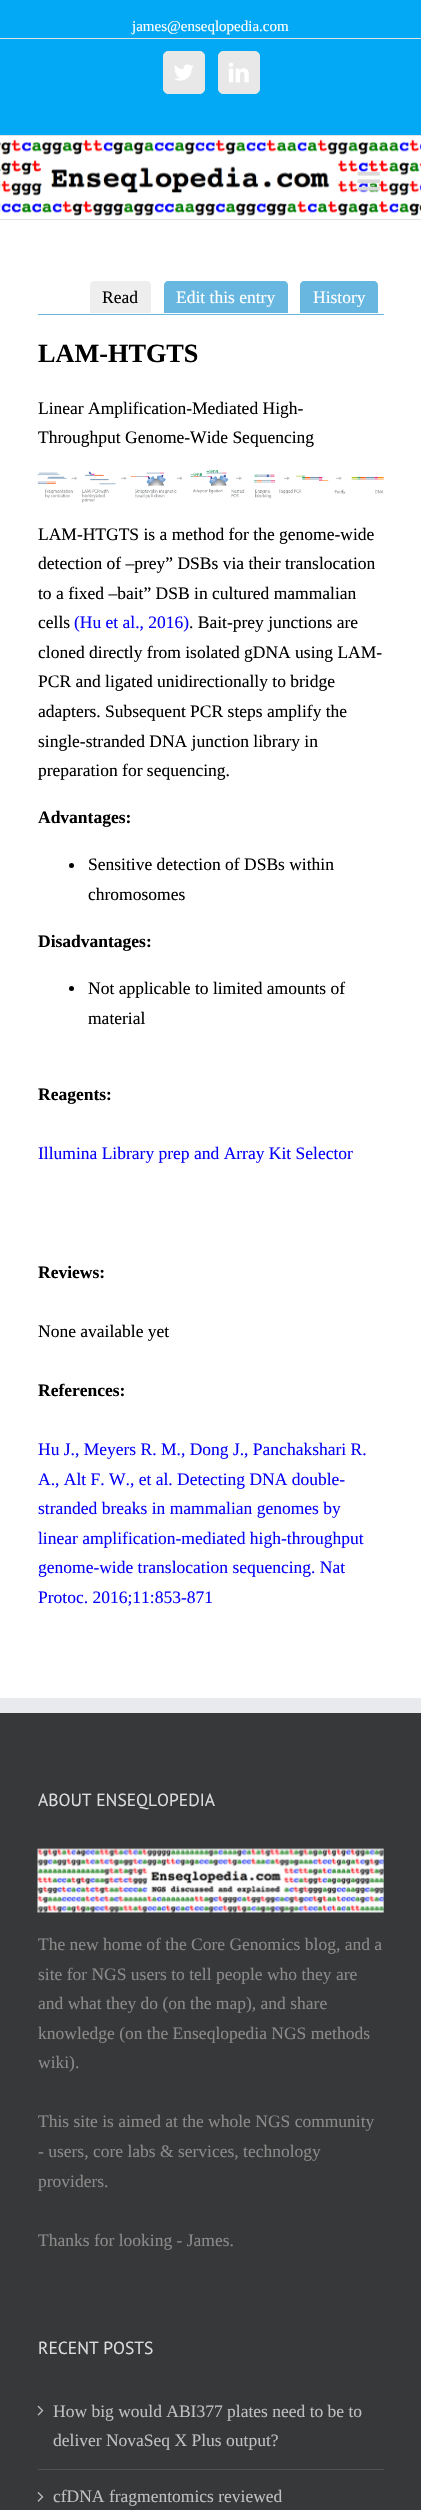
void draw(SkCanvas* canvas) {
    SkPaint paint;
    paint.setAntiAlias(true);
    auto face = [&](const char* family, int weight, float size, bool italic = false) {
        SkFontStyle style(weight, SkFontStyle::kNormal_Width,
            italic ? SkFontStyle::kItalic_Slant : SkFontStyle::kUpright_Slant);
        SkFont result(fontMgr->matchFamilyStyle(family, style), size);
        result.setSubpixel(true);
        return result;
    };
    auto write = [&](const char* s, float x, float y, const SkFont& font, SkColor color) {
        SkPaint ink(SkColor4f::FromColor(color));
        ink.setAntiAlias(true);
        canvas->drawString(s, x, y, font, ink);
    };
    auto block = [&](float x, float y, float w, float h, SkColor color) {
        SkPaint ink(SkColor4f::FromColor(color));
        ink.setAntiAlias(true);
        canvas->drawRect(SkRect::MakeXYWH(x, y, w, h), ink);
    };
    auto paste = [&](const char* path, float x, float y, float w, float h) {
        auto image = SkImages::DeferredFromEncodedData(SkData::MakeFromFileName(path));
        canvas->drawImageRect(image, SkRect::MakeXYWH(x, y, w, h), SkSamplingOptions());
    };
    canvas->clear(SK_ColorWHITE);
    block(0, 0, 421, 135, SkColorSetRGB(3, 169, 244));
    block(0, 135, 421, 1, SkColorSetRGB(225, 225, 225));
    block(0, 38, 421, 1, SkColorSetRGB(225, 225, 225));
    auto kFont1 = face("Liberation Serif", 400, 15);
    write("james@enseqlopedia.com", 132, 31, kFont1, SK_ColorWHITE);
    paint.setColor(SkColorSetRGB(232, 232, 232));
    canvas->drawRoundRect(SkRect::MakeXYWH(163.5f, 51.5f, 41, 42), 4.5f, 4.5f, paint);
    paint.setStyle(SkPaint::kStroke_Style);
    paint.setStrokeWidth(1);
    canvas->drawRoundRect(SkRect::MakeXYWH(163.5f, 51.5f, 41, 42), 4.5f, 4.5f, paint);
    paste("pic1.png", 174, 64, 20, 17);
    paint.setStyle(SkPaint::kFill_Style);
    canvas->drawRoundRect(SkRect::MakeXYWH(218.5f, 51.5f, 41, 42), 4.5f, 4.5f, paint);
    paint.setStyle(SkPaint::kStroke_Style);
    canvas->drawRoundRect(SkRect::MakeXYWH(218.5f, 51.5f, 41, 42), 4.5f, 4.5f, paint);
    paste("pic2.png", 228, 62, 21, 21);
    paste("pic3.png", 0, 139, 421, 77);
    block(0, 219, 421, 1, SkColorSetRGB(225, 225, 225));
    paste("pic4.png", 357, 171, 23, 20);
    block(38, 314, 346, 1, SkColorSetRGB(103, 183, 225));
    paint.setStyle(SkPaint::kFill_Style);
    paint.setColor(SkColorSetRGB(238, 238, 238));
    canvas->drawPath(SkPathBuilder().moveTo(94, 281).lineTo(147, 281).cubicTo(149, 281, 151, 283, 151, 285).lineTo(151, 313).lineTo(90, 313).lineTo(90, 285).cubicTo(90, 283, 92, 281, 94, 281).close().detach(), paint);
    auto kFont2 = face("Liberation Serif", 400, 17.5f);
    write("Read", 102, 303, kFont2, SK_ColorBLACK);
    paint.setColor(SkColorSetRGB(103, 183, 225));
    canvas->drawPath(SkPathBuilder().moveTo(168, 281).lineTo(284, 281).cubicTo(286, 281, 288, 283, 288, 285).lineTo(288, 313).lineTo(164, 313).lineTo(164, 285).cubicTo(164, 283, 166, 281, 168, 281).close().detach(), paint);
    write("Edit this entry", 176, 303, kFont2, SK_ColorWHITE);
    canvas->drawPath(SkPathBuilder().moveTo(304, 281).lineTo(374, 281).cubicTo(376, 281, 378, 283, 378, 285).lineTo(378, 313).lineTo(300, 313).lineTo(300, 285).cubicTo(300, 283, 302, 281, 304, 281).close().detach(), paint);
    write("History", 313, 303, kFont2, SK_ColorWHITE);
    auto kFont3 = face("Liberation Serif", 700, 26.25f);
    write("LAM-HTGTS", 38, 362, kFont3, SK_ColorBLACK);
    write("Linear Amplification-Mediated High-", 38, 414, kFont2, SK_ColorBLACK);
    write("Throughput Genome-Wide Sequencing", 38, 443, kFont2, SK_ColorBLACK);
    paste("pic5.png", 37, 470, 347, 33);
    write("LAM-HTGTS is a method for the genome-wide", 38, 540, kFont2, SK_ColorBLACK);
    write("detection of –prey” DSBs via their translocation", 38, 569, kFont2, SK_ColorBLACK);
    write("to a fixed –bait” DSB in cultured mammalian", 38, 599, kFont2, SK_ColorBLACK);
    write("cells", 38, 628, kFont2, SK_ColorBLACK);
    write("(Hu et al., 2016)", 74, 628, kFont2, SkColorSetRGB(6, 2, 249));
    write(". Bait-prey junctions are", 189, 628, kFont2, SK_ColorBLACK);
    write("cloned directly from isolated gDNA using LAM-", 38, 658, kFont2, SK_ColorBLACK);
    write("PCR and ligated unidirectionally to bridge", 38, 687, kFont2, SK_ColorBLACK);
    write("adapters. Subsequent PCR steps amplify the", 38, 717, kFont2, SK_ColorBLACK);
    write("single-stranded DNA junction library in", 38, 747, kFont2, SK_ColorBLACK);
    write("preparation for sequencing.", 38, 776, kFont2, SK_ColorBLACK);
    auto kFont4 = face("Liberation Serif", 700, 17.5f);
    write("Advantages:", 38, 823, kFont4, SK_ColorBLACK);
    paint.setColor(SK_ColorBLACK);
    canvas->drawCircle(71.5f, 865.5f, 2.5f, paint);
    write("Sensitive detection of DSBs within", 88, 870, kFont2, SK_ColorBLACK);
    write("chromosomes", 88, 900, kFont2, SK_ColorBLACK);
    write("Disadvantages:", 38, 947, kFont4, SK_ColorBLACK);
    canvas->drawCircle(71.5f, 988.5f, 2.5f, paint);
    write("Not applicable to limited amounts of", 88, 994, kFont2, SK_ColorBLACK);
    write("material", 88, 1024, kFont2, SK_ColorBLACK);
    write("Reagents:", 38, 1100, kFont4, SK_ColorBLACK);
    write("Illumina Library prep and Array Kit Selector", 38, 1159, kFont2, SkColorSetRGB(6, 2, 249));
    write("Reviews:", 38, 1278, kFont4, SK_ColorBLACK);
    write("None available yet", 38, 1337, kFont2, SK_ColorBLACK);
    write("References:", 38, 1396, kFont4, SK_ColorBLACK);
    write("Hu J., Meyers R. M., Dong J., Panchakshari R.", 38, 1455, kFont2, SkColorSetRGB(6, 2, 249));
    write("A., Alt F. W., et al. Detecting DNA double-", 38, 1485, kFont2, SkColorSetRGB(6, 2, 249));
    write("stranded breaks in mammalian genomes by", 38, 1514, kFont2, SkColorSetRGB(6, 2, 249));
    write("linear amplification-mediated high-throughput", 38, 1544, kFont2, SkColorSetRGB(6, 2, 249));
    write("genome-wide translocation sequencing. Nat", 38, 1573, kFont2, SkColorSetRGB(6, 2, 249));
    write("Protoc. 2016;11:853-871", 38, 1603, kFont2, SkColorSetRGB(6, 2, 249));
    block(0, 1713, 421, 797, SkColorSetRGB(54, 56, 57));
    block(0, 1698, 421, 15, SkColorSetRGB(233, 234, 238));
    auto kFont5 = face("PT Sans", 400, 17.5f);
    write("ABOUT ENSEQLOPEDIA", 38, 1806, kFont5, SkColorSetRGB(221, 221, 221));
    paste("pic6.png", 37, 1848, 347, 65);
    write("The new home of the Core Genomics blog, and a", 38, 1950, kFont2, SkColorSetRGB(140, 137, 137));
    write("site for NGS users to tell people who they are", 38, 1980, kFont2, SkColorSetRGB(140, 137, 137));
    write("and what they do (on the map), and share", 38, 2009, kFont2, SkColorSetRGB(140, 137, 137));
    write("knowledge (on the Enseqlopedia NGS methods", 38, 2039, kFont2, SkColorSetRGB(140, 137, 137));
    write("wiki).", 38, 2068, kFont2, SkColorSetRGB(140, 137, 137));
    write("This site is aimed at the whole NGS community", 38, 2127, kFont2, SkColorSetRGB(140, 137, 137));
    write("- users, core labs & services, technology", 38, 2157, kFont2, SkColorSetRGB(140, 137, 137));
    write("providers.", 38, 2187, kFont2, SkColorSetRGB(140, 137, 137));
    write("Thanks for looking - James.", 38, 2246, kFont2, SkColorSetRGB(140, 137, 137));
    write("RECENT POSTS", 38, 2354, kFont5, SkColorSetRGB(221, 221, 221));
    block(38, 2469, 346, 1, SkColorSetRGB(80, 81, 82));
    paste("pic7.png", 37, 2405, 7, 11);
    write("How big would ABI377 plates need to be to", 53, 2417, kFont2, SkColorSetRGB(191, 191, 191));
    write("deliver NovaSeq X Plus output?", 53, 2446, kFont2, SkColorSetRGB(191, 191, 191));
    paste("pic8.png", 37, 2492, 7, 10);
    write("cfDNA fragmentomics reviewed", 53, 2502, kFont2, SkColorSetRGB(191, 191, 191));
}
